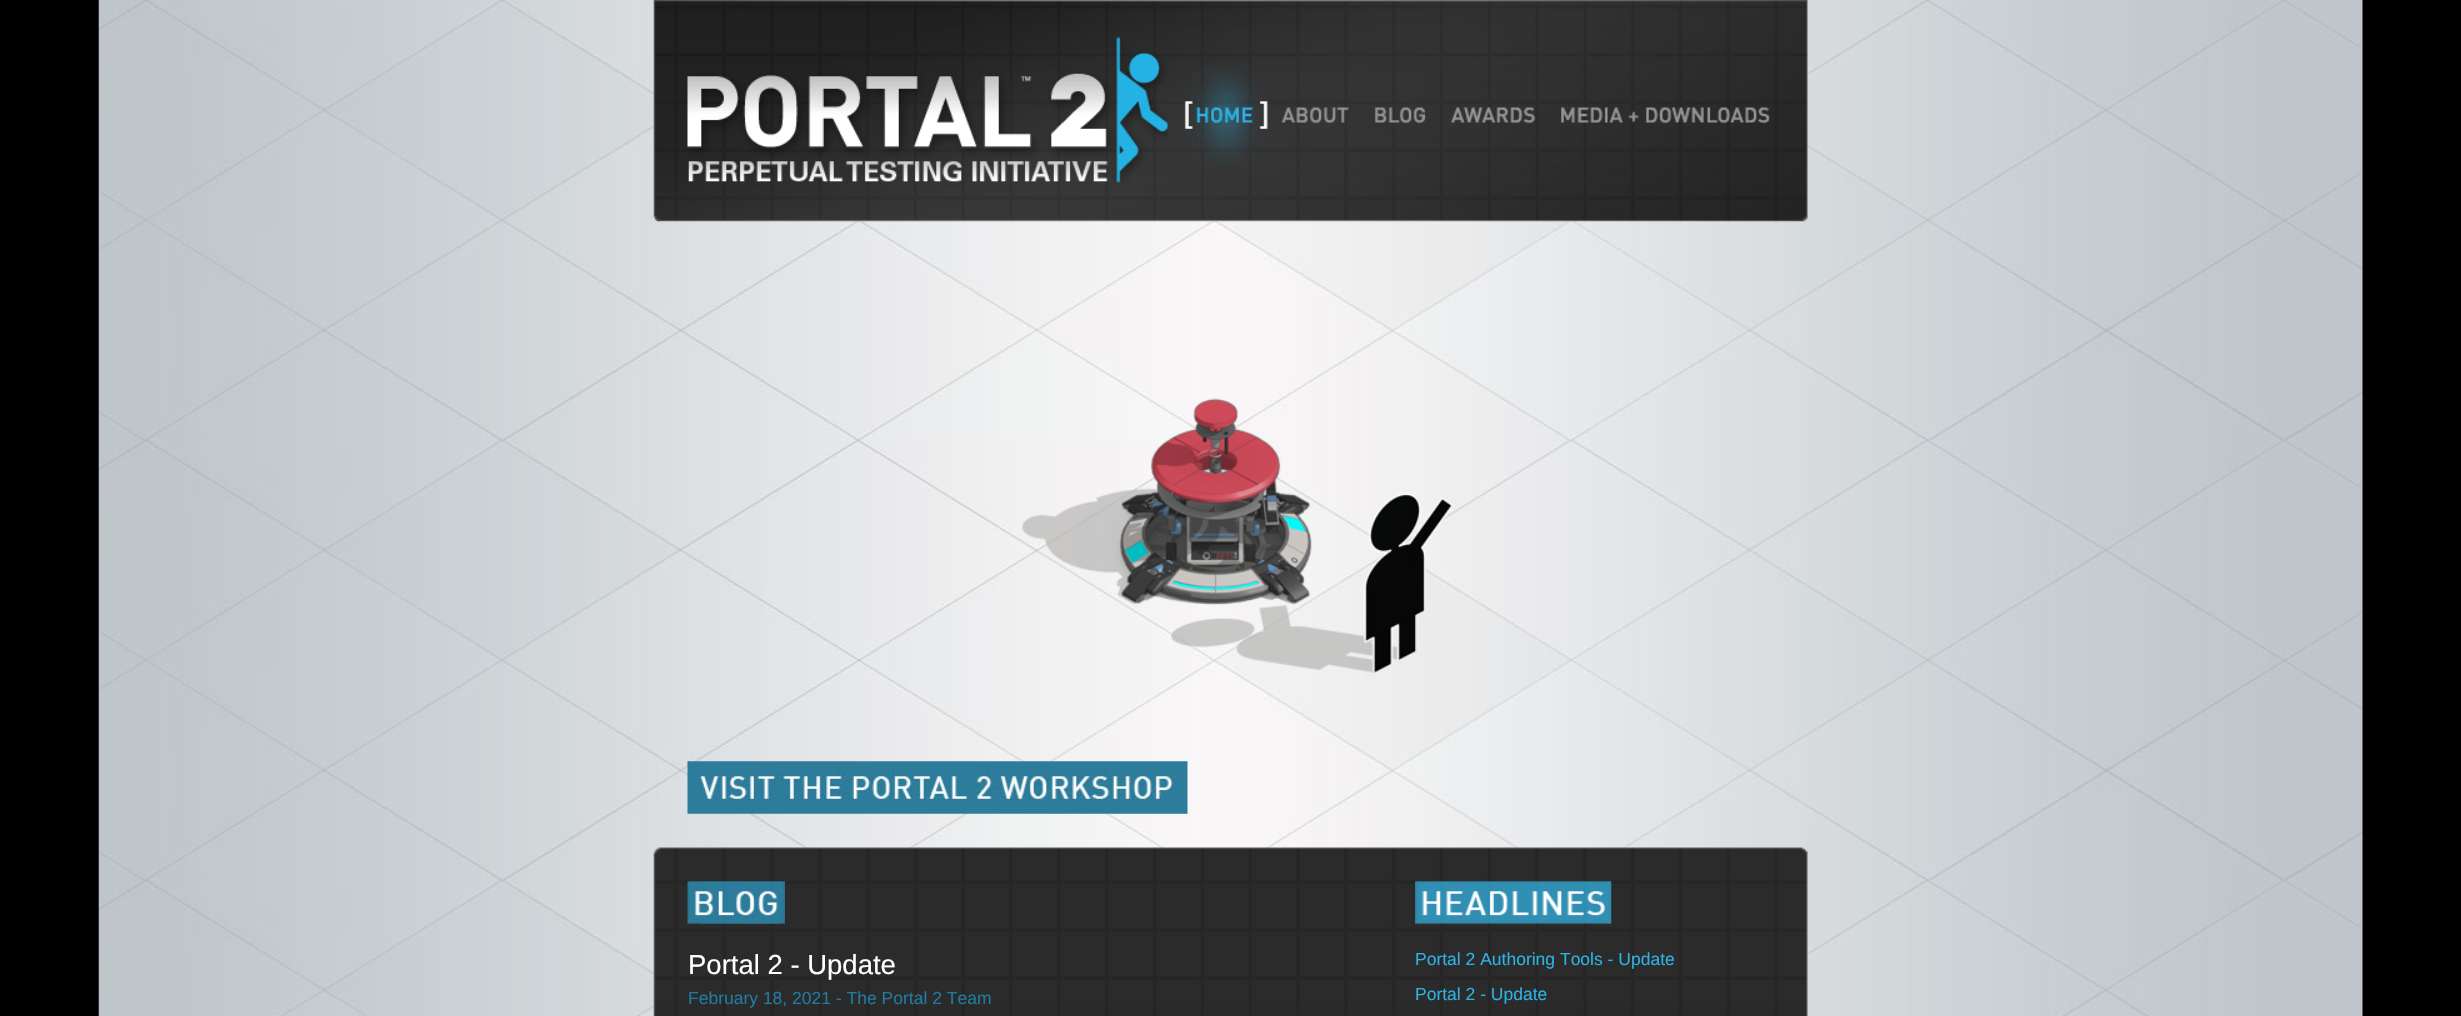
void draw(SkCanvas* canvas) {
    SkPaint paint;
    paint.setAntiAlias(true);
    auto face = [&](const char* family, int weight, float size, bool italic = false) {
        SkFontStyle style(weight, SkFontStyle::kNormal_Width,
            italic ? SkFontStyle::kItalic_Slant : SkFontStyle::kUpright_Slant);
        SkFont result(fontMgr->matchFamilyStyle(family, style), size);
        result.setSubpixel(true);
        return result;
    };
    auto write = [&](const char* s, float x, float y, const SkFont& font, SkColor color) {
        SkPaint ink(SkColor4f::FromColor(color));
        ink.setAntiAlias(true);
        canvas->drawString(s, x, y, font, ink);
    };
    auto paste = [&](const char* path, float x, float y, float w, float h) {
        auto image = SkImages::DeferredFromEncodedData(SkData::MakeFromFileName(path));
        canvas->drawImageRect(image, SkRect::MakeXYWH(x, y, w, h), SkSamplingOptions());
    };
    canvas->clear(SK_ColorBLACK);
    paste("pic1.png", 98, 0, 2265, 1016);
    paste("pic2.png", 653, 0, 1155, 222);
    paste("pic3.png", 687, 37, 481, 146);
    paste("pic4.png", 1184, 64, 84, 103);
    paste("pic5.png", 1281, 107, 68, 17);
    paste("pic6.png", 1374, 107, 52, 17);
    paste("pic7.png", 1451, 107, 85, 17);
    paste("pic8.png", 1561, 107, 209, 17);
    paste("pic9.png", 688, 161, 420, 21);
    paste("pic10.png", 1022, 398, 431, 277);
    paste("pic11.png", 687, 761, 501, 53);
    paste("pic12.png", 653, 847, 1155, 169);
    paste("pic13.png", 687, 881, 98, 43);
    auto kFont1 = face("Liberation Sans", 400, 27.5f);
    write("Portal 2 - Update", 688, 974, kFont1, SK_ColorWHITE);
    auto kFont2 = face("Liberation Sans", 400, 17.5f);
    write("February 18, 2021 - The Portal 2 Team", 688, 1004, kFont2, SkColorSetRGB(31, 123, 159));
    paste("pic14.png", 1415, 881, 197, 43);
    write("Portal 2 Authoring Tools - Update", 1415, 965, kFont2, SkColorSetRGB(45, 178, 230));
    write("Portal 2 - Update", 1415, 1000, kFont2, SkColorSetRGB(45, 178, 230));
}
